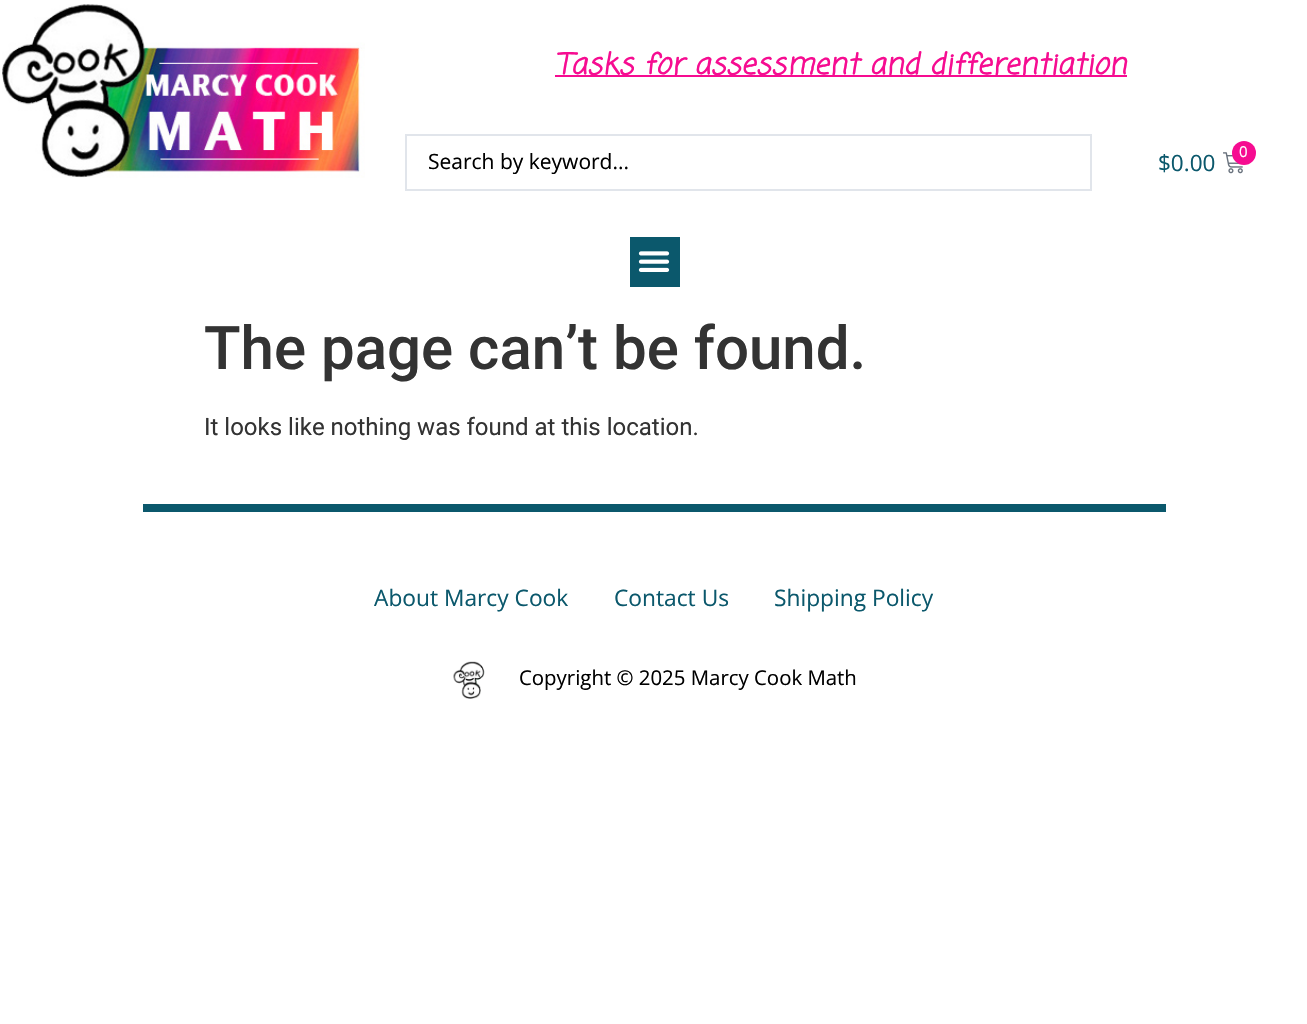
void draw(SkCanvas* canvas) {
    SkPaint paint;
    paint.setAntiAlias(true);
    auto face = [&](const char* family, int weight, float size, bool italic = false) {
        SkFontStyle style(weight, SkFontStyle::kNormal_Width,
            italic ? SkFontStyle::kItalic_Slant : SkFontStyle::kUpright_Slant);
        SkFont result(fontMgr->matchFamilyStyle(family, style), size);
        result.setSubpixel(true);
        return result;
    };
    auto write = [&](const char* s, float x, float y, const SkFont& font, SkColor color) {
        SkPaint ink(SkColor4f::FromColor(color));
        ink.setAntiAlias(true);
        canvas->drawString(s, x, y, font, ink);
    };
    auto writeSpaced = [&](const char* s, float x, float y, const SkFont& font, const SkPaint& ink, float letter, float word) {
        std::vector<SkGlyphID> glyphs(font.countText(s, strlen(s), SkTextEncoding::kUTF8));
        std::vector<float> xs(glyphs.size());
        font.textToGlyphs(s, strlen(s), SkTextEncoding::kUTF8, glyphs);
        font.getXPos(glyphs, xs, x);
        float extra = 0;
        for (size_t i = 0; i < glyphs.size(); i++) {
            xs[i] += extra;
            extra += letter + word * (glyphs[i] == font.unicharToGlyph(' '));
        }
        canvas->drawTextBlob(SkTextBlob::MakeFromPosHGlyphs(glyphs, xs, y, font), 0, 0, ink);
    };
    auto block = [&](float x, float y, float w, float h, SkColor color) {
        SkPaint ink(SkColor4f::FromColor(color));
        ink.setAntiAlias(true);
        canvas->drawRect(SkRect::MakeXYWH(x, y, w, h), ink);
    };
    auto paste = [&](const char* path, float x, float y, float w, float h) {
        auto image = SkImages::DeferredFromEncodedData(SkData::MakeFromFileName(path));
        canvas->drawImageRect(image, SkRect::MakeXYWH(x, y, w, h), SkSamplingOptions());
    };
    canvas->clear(SK_ColorWHITE);
    paste("pic1.png", 2, 4, 363, 174);
    block(555, 75, 572, 2, SkColorSetRGB(246, 12, 145));
    auto kFont1 = face("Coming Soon", 700, 28.75f, true);
    paint.setColor(SkColorSetRGB(246, 12, 145));
    writeSpaced("Tasks for assessment and differentiation", 556, 74, kFont1, paint, 0.6f, 0);
    paint.setStyle(SkPaint::kStroke_Style);
    paint.setStrokeWidth(2);
    paint.setColor(SkColorSetRGB(225, 229, 235));
    canvas->drawRect(SkRect::MakeXYWH(406, 135, 685, 55), paint);
    auto kFont2 = face("Open Sans", 400, 21);
    write("Search by keyword...", 428, 169, kFont2, SK_ColorBLACK);
    auto kFont3 = face("Open Sans", 400, 22.5f);
    write("$0.00", 1158, 171, kFont3, SkColorSetRGB(11, 88, 108));
    paste("pic2.png", 1223, 152, 20, 22);
    paint.setStyle(SkPaint::kFill_Style);
    paint.setColor(SkColorSetRGB(246, 12, 145));
    canvas->drawCircle(1244, 153, 12, paint);
    auto kFont4 = face("Open Sans", 400, 15);
    write("0", 1239, 157, kFont4, SK_ColorWHITE);
    block(630, 237, 50, 50, SkColorSetRGB(11, 88, 108));
    paste("pic3.png", 638, 251, 32, 21);
    auto kFont5 = face("Roboto", 500, 60);
    write("The page can’t be found.", 204, 369, kFont5, SkColorSetRGB(51, 51, 51));
    auto kFont6 = face("Roboto", 400, 24);
    write("It looks like nothing was found at this location.", 204, 435, kFont6, SkColorSetRGB(51, 51, 51));
    block(143, 504, 1023, 8, SkColorSetRGB(11, 88, 108));
    auto kFont7 = face("Open Sans", 400, 22.75f);
    write("About Marcy Cook", 374, 606, kFont7, SkColorSetRGB(11, 88, 108));
    write("Contact Us", 614, 606, kFont7, SkColorSetRGB(11, 88, 108));
    write("Shipping Policy", 774, 606, kFont7, SkColorSetRGB(11, 88, 108));
    paste("pic4.png", 453, 661, 32, 38);
    auto kFont8 = face("Open Sans", 400, 20.4f);
    write("Copyright © 2025 Marcy Cook Math", 519, 685, kFont8, SK_ColorBLACK);
}
